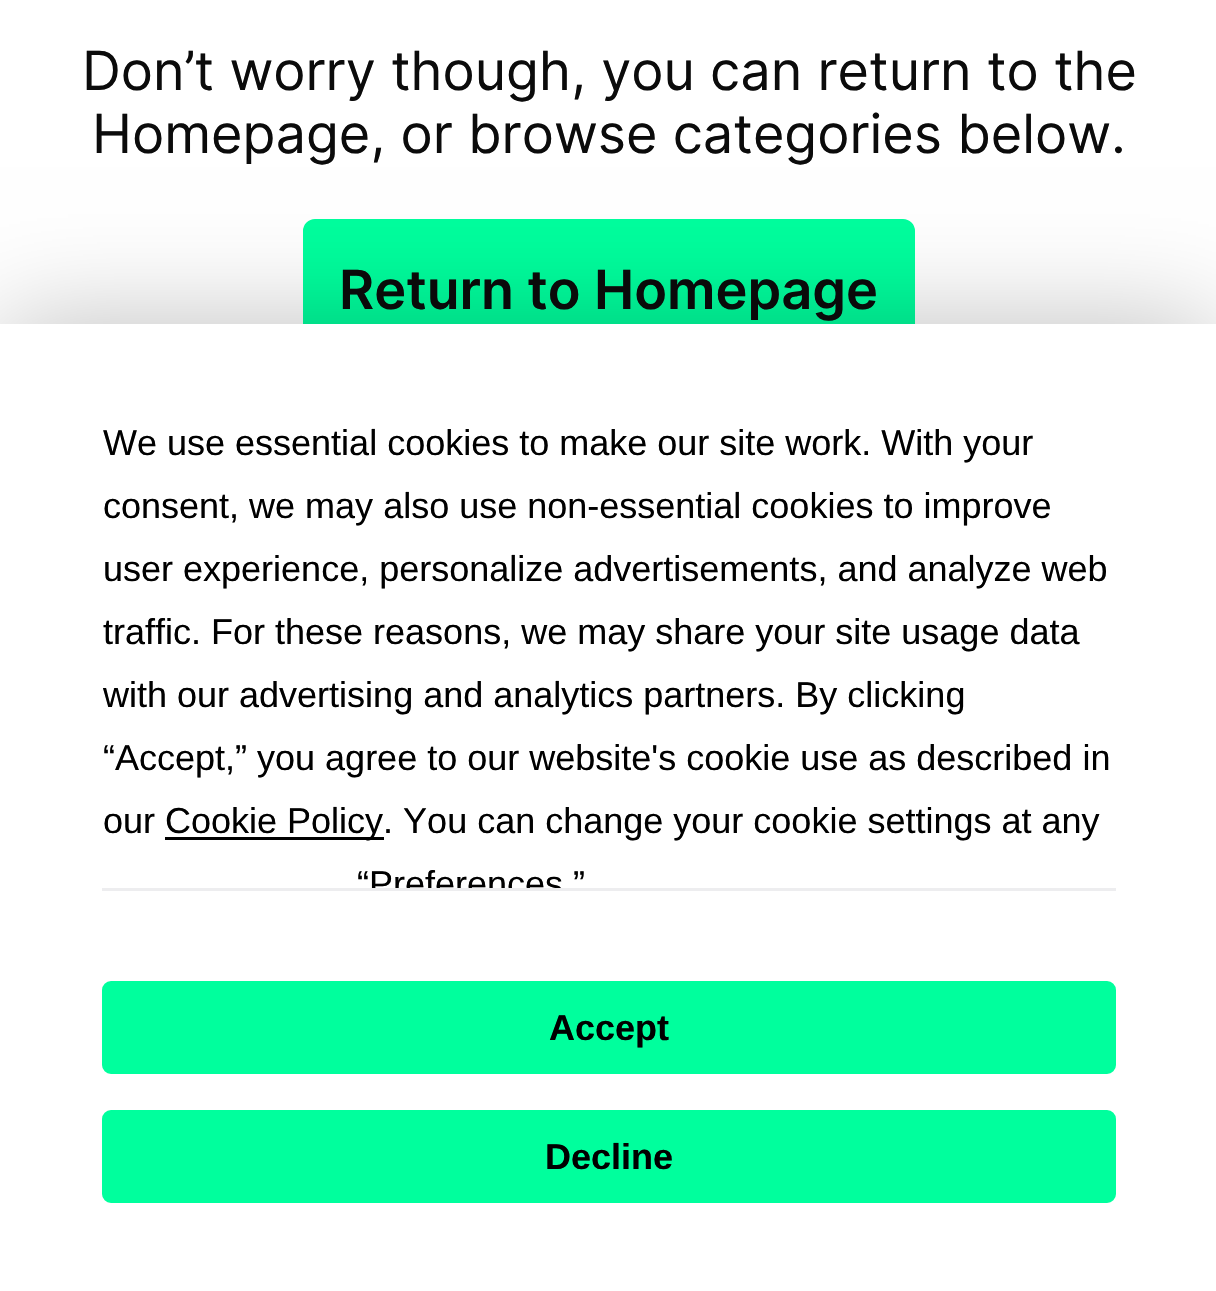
void draw(SkCanvas* canvas) {
    SkPaint paint;
    paint.setAntiAlias(true);
    auto face = [&](const char* family, int weight, float size, bool italic = false) {
        SkFontStyle style(weight, SkFontStyle::kNormal_Width,
            italic ? SkFontStyle::kItalic_Slant : SkFontStyle::kUpright_Slant);
        SkFont result(fontMgr->matchFamilyStyle(family, style), size);
        result.setSubpixel(true);
        return result;
    };
    auto write = [&](const char* s, float x, float y, const SkFont& font, SkColor color) {
        SkPaint ink(SkColor4f::FromColor(color));
        ink.setAntiAlias(true);
        canvas->drawString(s, x, y, font, ink);
    };
    auto block = [&](float x, float y, float w, float h, SkColor color) {
        SkPaint ink(SkColor4f::FromColor(color));
        ink.setAntiAlias(true);
        canvas->drawRect(SkRect::MakeXYWH(x, y, w, h), ink);
    };
    canvas->clear(SK_ColorWHITE);
    auto kFont1 = face("Inter", 400, 54);
    write("Don’t worry though, you can return to the", 82, 90, kFont1, SkColorSetRGB(11, 11, 11));
    write("Homepage, or browse categories below.", 92, 153, kFont1, SkColorSetRGB(11, 11, 11));
    paint.setColor(SkColorSetRGB(0, 255, 157));
    canvas->drawRoundRect(SkRect::MakeXYWH(306, 222, 606, 138), 9, 9, paint);
    paint.setStyle(SkPaint::kStroke_Style);
    paint.setStrokeWidth(6);
    canvas->drawRoundRect(SkRect::MakeXYWH(306, 222, 606, 138), 9, 9, paint);
    auto kFont2 = face("Inter", 600, 54);
    write("Return to Homepage", 339, 309, kFont2, SkColorSetRGB(11, 11, 11));
    paint.setStyle(SkPaint::kFill_Style);
    paint.setColor(SkColorSetARGB(64, 0, 0, 0));
    paint.setMaskFilter(SkMaskFilter::MakeBlur(kNormal_SkBlurStyle, 52.5f));
    canvas->drawRect(SkRect::MakeXYWH(0, 324, 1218, 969), paint);
    paint.setMaskFilter(nullptr);
    block(0, 324, 1216, 967, SK_ColorWHITE);
    auto kFont3 = face("Liberation Sans", 400, 36);
    write("We use essential cookies to make our site work. With your", 103, 455, kFont3, SK_ColorBLACK);
    write("consent, we may also use non-essential cookies to improve", 103, 518, kFont3, SK_ColorBLACK);
    write("user experience, personalize advertisements, and analyze web", 103, 581, kFont3, SK_ColorBLACK);
    write("traffic. For these reasons, we may share your site usage data", 103, 644, kFont3, SK_ColorBLACK);
    write("with our advertising and analytics partners. By clicking", 103, 707, kFont3, SK_ColorBLACK);
    write("“Accept,” you agree to our website's cookie use as described in", 103, 770, kFont3, SK_ColorBLACK);
    write("our", 103, 833, kFont3, SK_ColorBLACK);
    block(165, 837, 219, 3, SK_ColorBLACK);
    write("Cookie Policy. You can change your cookie settings at any", 165, 833, kFont3, SK_ColorBLACK);
    write("“Preferences ”", 357, 896, kFont3, SK_ColorBLACK);
    block(371, 891, 191, 6, SK_ColorWHITE);
    block(102, 888, 1014, 3, SkColorSetRGB(237, 237, 239));
    paint.setColor(SkColorSetRGB(0, 255, 157));
    canvas->drawRoundRect(SkRect::MakeXYWH(103.5f, 982.5f, 1011, 90), 7.5f, 7.5f, paint);
    paint.setStyle(SkPaint::kStroke_Style);
    paint.setStrokeWidth(3);
    canvas->drawRoundRect(SkRect::MakeXYWH(103.5f, 982.5f, 1011, 90), 7.5f, 7.5f, paint);
    auto kFont4 = face("Liberation Sans", 700, 36);
    write("Accept", 549, 1040, kFont4, SK_ColorBLACK);
    paint.setStyle(SkPaint::kFill_Style);
    canvas->drawRoundRect(SkRect::MakeXYWH(103.5f, 1111.5f, 1011, 90), 7.5f, 7.5f, paint);
    paint.setStyle(SkPaint::kStroke_Style);
    canvas->drawRoundRect(SkRect::MakeXYWH(103.5f, 1111.5f, 1011, 90), 7.5f, 7.5f, paint);
    write("Decline", 545, 1169, kFont4, SK_ColorBLACK);
}
